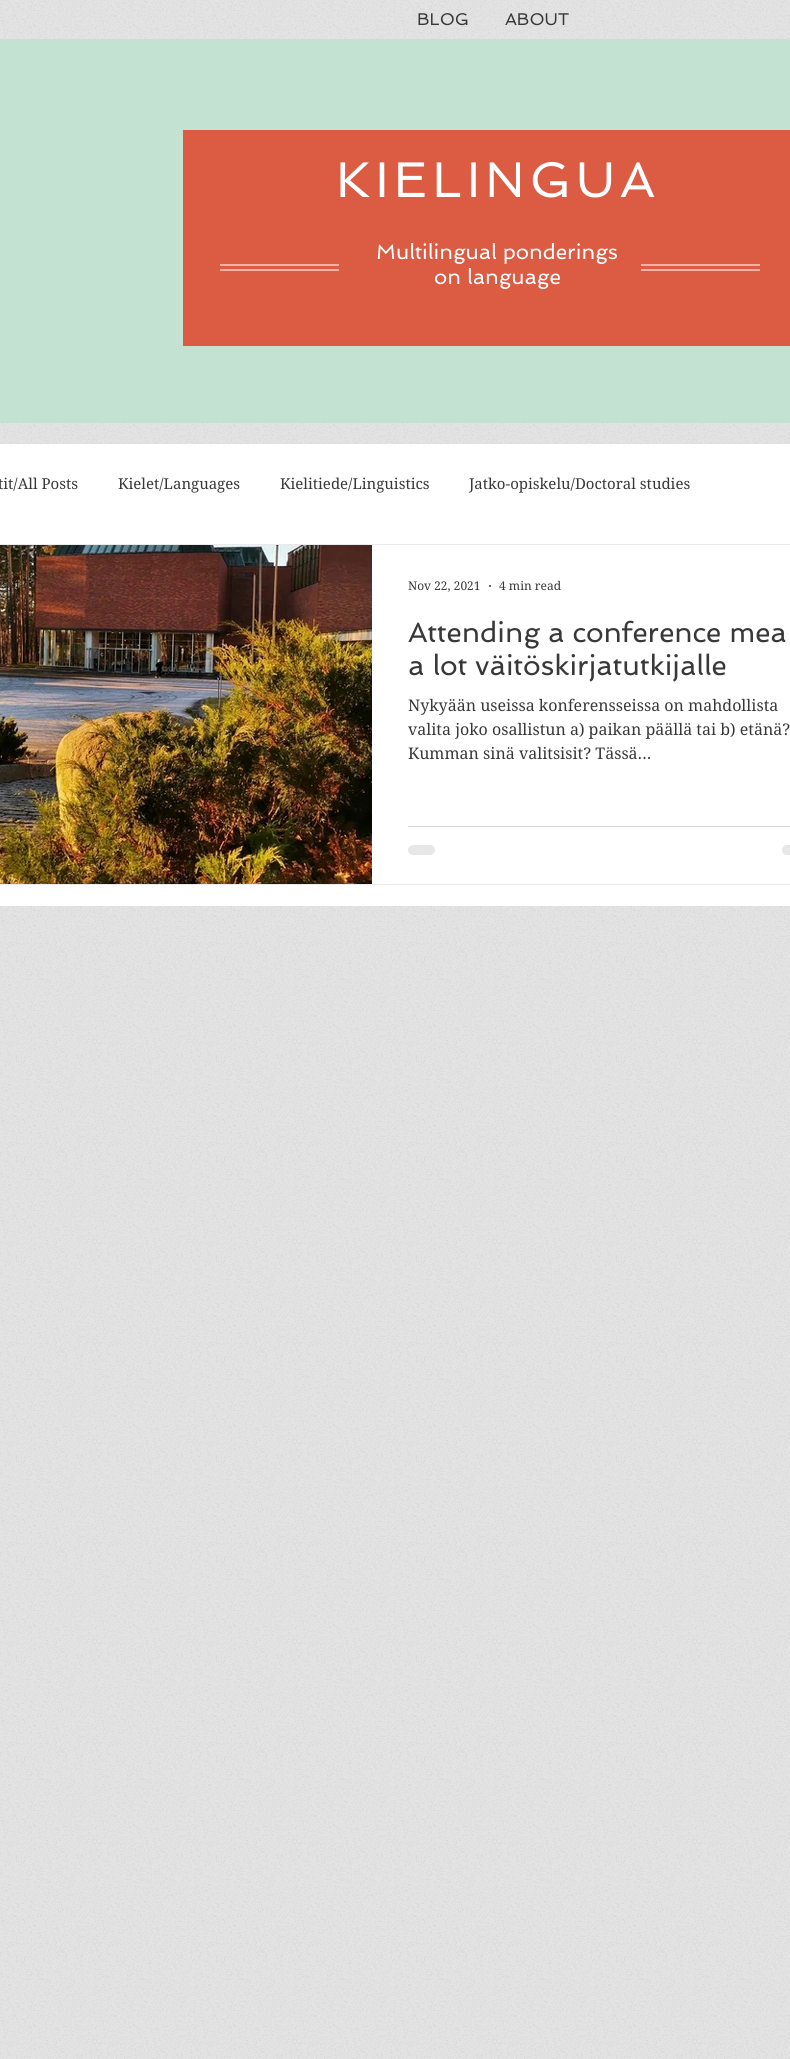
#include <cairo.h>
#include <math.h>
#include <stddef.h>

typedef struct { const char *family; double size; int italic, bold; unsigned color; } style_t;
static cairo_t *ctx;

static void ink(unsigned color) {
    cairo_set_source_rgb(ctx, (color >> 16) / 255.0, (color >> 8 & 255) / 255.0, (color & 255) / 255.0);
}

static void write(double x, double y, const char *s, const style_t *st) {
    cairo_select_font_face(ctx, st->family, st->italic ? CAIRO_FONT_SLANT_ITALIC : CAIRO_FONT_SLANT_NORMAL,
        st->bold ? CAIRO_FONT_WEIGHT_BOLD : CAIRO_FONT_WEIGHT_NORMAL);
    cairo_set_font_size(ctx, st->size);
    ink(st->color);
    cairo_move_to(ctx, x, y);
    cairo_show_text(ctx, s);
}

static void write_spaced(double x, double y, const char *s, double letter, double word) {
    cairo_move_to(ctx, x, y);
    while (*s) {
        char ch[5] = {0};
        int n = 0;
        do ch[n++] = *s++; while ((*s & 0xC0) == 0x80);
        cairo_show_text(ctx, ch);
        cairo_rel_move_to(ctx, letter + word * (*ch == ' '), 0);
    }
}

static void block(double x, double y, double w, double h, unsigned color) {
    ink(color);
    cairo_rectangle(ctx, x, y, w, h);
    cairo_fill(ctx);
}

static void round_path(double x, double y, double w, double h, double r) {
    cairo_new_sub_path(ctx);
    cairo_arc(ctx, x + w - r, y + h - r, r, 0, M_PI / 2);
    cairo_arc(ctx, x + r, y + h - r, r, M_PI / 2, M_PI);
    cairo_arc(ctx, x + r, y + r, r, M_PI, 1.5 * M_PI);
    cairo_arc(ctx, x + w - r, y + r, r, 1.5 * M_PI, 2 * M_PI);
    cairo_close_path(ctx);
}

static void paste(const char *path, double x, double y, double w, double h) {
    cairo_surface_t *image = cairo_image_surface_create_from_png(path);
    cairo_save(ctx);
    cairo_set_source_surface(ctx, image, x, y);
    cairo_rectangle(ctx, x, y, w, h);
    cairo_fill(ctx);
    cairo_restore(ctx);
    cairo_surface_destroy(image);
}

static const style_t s1 = {"Spinnaker", 17, 0, 0, 0x393838};
static const style_t s2 = {"Spinnaker", 21, 0, 0, 0xffffff};
static const style_t s3 = {"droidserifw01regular", 15, 0, 0, 0x393838};
static const style_t s4 = {"droidserifw01regular", 12, 0, 0, 0x393838};
static const style_t s5 = {"Spinnaker", 28, 0, 0, 0x393838};
static const style_t s6 = {"droidserifw01regular", 16, 0, 0, 0x393838};

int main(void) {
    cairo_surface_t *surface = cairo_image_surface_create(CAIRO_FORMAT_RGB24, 790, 2059);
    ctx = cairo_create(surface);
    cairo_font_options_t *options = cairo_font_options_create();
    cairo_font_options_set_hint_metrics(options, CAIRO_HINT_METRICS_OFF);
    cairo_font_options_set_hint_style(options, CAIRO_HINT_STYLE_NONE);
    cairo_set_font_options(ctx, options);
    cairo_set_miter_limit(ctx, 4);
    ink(0xe3e3e3);
    cairo_paint(ctx);
    paste("pic1.png", 0, 0, 790, 2059);
    write(417, 25, "BLOG", &s1);
    write(505, 25, "ABOUT", &s1);
    block(0, 39, 790, 384, 0xc3e2d2);
    block(183, 130, 607, 216, 0xdb5b43);
    cairo_set_font_size(ctx, 50);
    ink(0xffffff);
    write_spaced(336, 197, "KIELINGUA", 5, 0);
    block(220, 264, 119, 2, 0xf4b0a4);
    block(220, 269, 119, 2, 0xf4b0a4);
    write(376, 259, "Multilingual ponderings", &s2);
    write(434, 284, "on language", &s2);
    block(641, 264, 119, 2, 0xf4b0a4);
    block(641, 269, 119, 2, 0xf4b0a4);
    block(0, 444, 790, 462, 0xffffff);
    write(-2, 489, "tit/All Posts", &s3);
    write(118, 489, "Kielet/Languages", &s3);
    write(280, 489, "Kielitiede/Linguistics", &s3);
    write(469, 489, "Jatko-opiskelu/Doctoral studies", &s3);
    cairo_rectangle(ctx, -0.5, 544.5, 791, 340);
    ink(0xeaeaea);
    cairo_set_line_width(ctx, 1);
    cairo_stroke(ctx);
    paste("pic2.png", 0, 545, 372, 339);
    write(408, 590, "Nov 22, 2021", &s4);
    cairo_new_path(ctx);
    cairo_arc(ctx, 490, 586, 1, 0, 2 * M_PI);
    cairo_fill(ctx);
    write(499, 590, "4 min read", &s4);
    write(408, 642, "Attending a conference mea", &s5);
    write(408, 675, "a lot väitöskirjatutkijalle", &s5);
    write(408, 711, "Nykyään useissa konferensseissa on mahdollista", &s6);
    write(408, 735, "valita joko osallistun a) paikan päällä tai b) etänä?", &s6);
    write(408, 759, "Kumman sinä valitsisit? Tässä...", &s6);
    block(408, 826, 382, 1, 0xd7d7d7);
    ink(0xe7e7e7);
    round_path(408, 845, 27, 10, 5);
    cairo_fill(ctx);
    round_path(782, 845, 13, 10, 5);
    cairo_fill(ctx);
    cairo_surface_write_to_png(surface, "screenshot.png");
    cairo_font_options_destroy(options);
    cairo_destroy(ctx);
    cairo_surface_destroy(surface);
    return 0;
}
